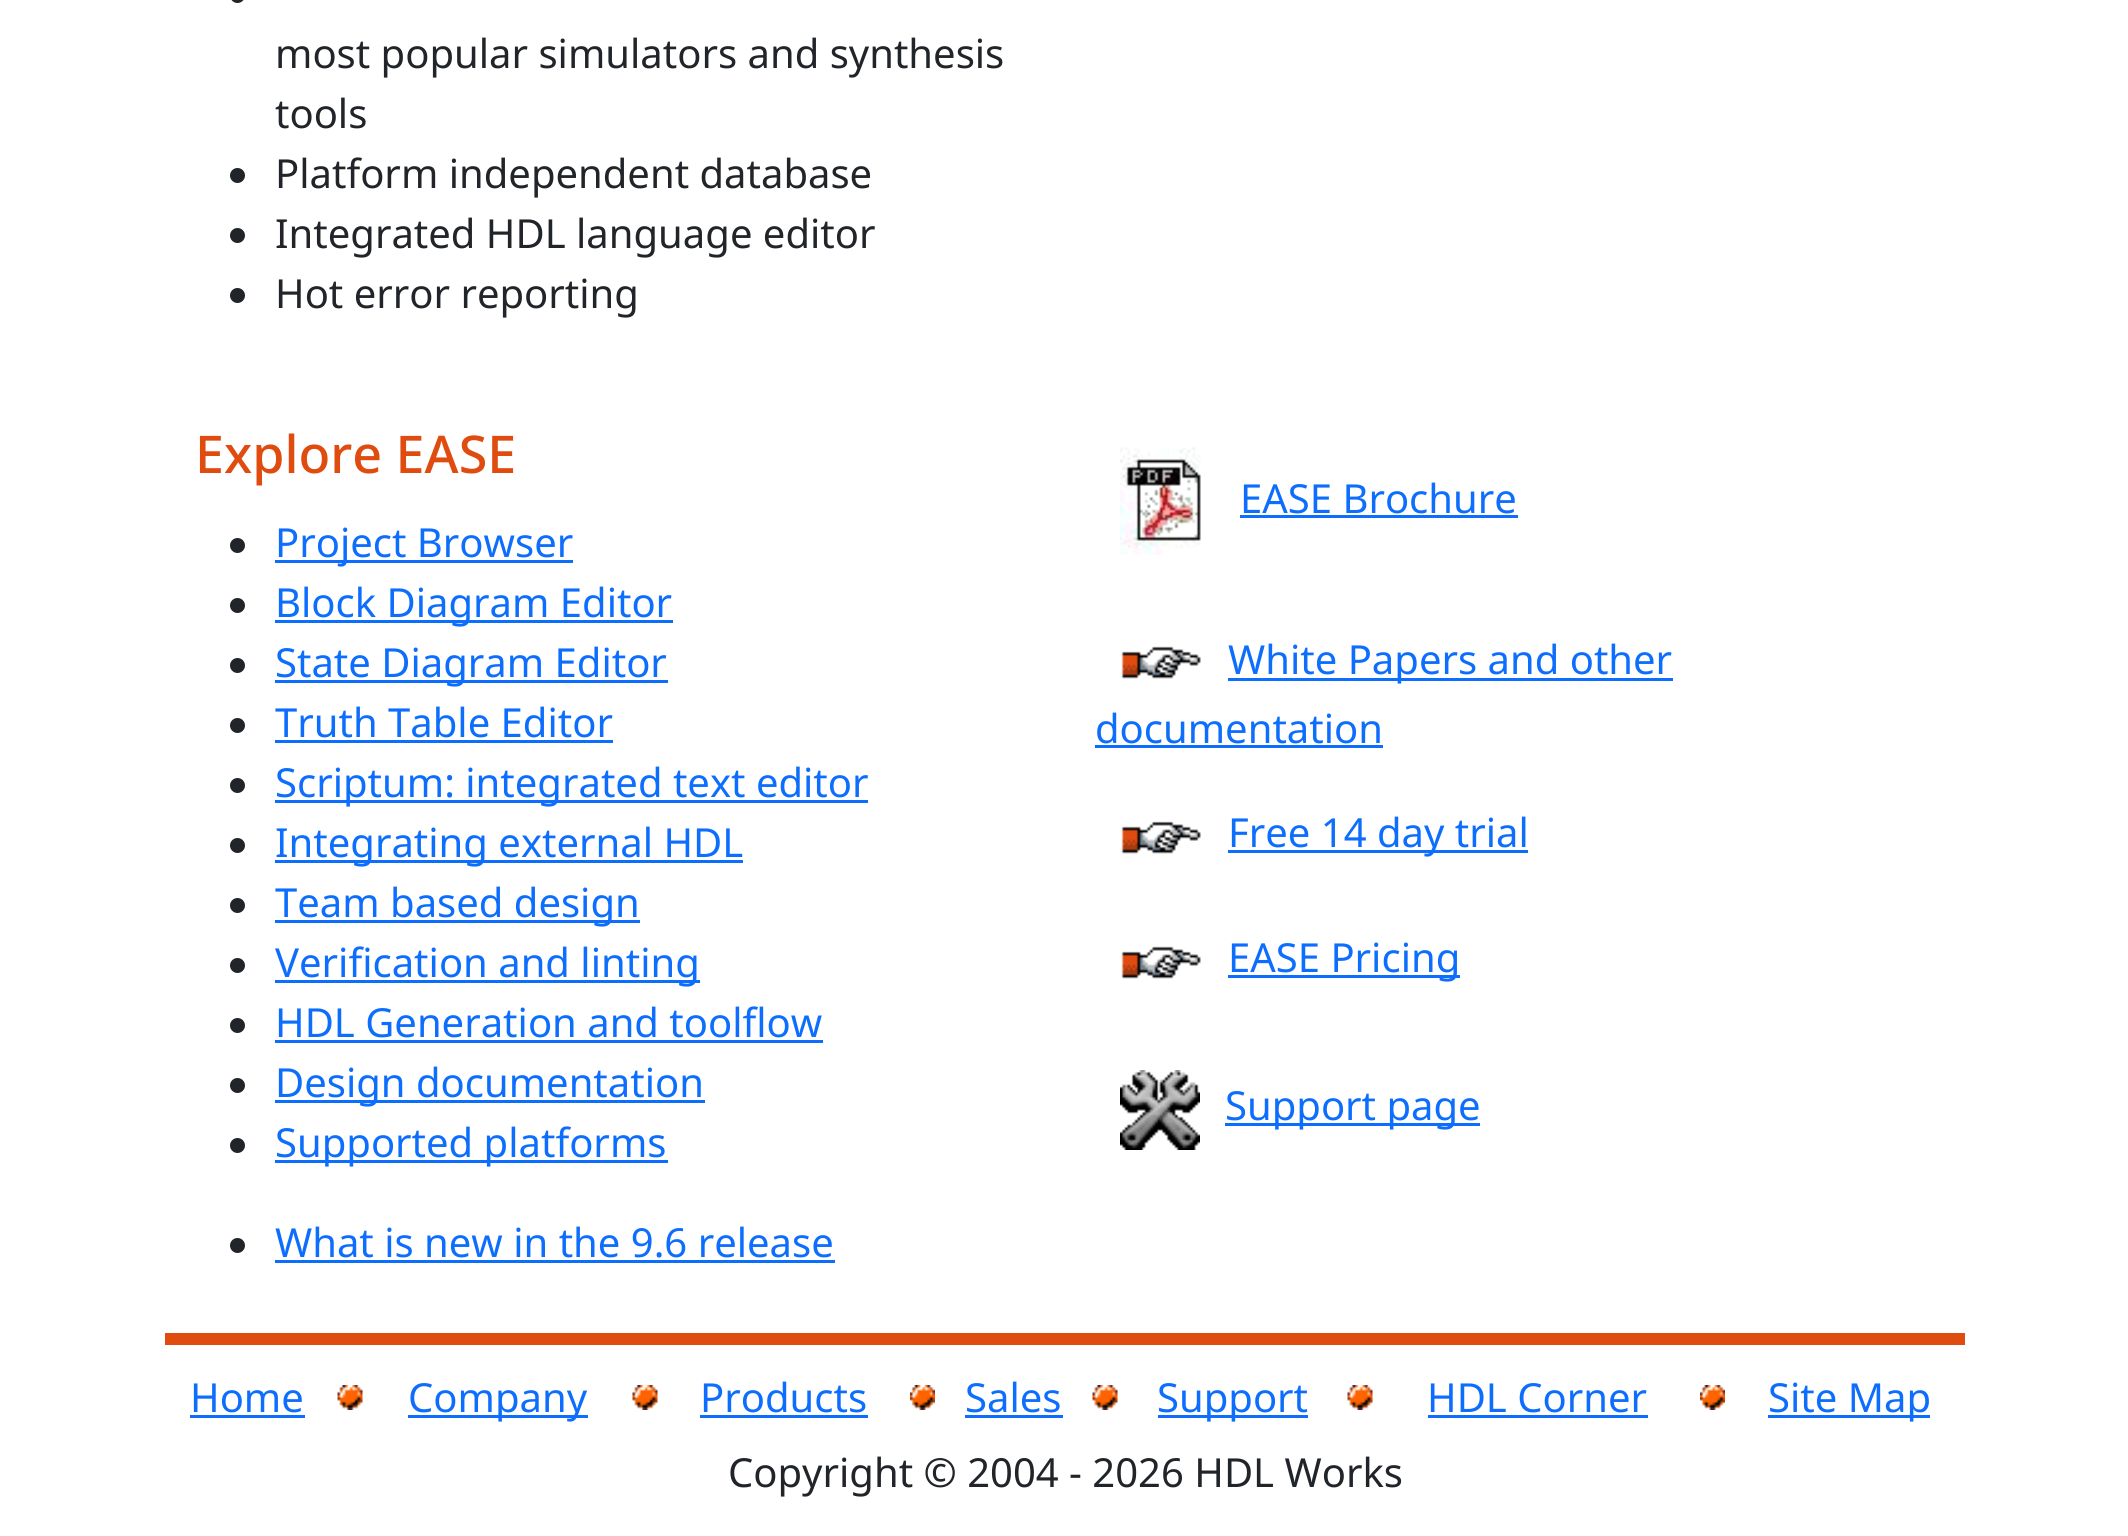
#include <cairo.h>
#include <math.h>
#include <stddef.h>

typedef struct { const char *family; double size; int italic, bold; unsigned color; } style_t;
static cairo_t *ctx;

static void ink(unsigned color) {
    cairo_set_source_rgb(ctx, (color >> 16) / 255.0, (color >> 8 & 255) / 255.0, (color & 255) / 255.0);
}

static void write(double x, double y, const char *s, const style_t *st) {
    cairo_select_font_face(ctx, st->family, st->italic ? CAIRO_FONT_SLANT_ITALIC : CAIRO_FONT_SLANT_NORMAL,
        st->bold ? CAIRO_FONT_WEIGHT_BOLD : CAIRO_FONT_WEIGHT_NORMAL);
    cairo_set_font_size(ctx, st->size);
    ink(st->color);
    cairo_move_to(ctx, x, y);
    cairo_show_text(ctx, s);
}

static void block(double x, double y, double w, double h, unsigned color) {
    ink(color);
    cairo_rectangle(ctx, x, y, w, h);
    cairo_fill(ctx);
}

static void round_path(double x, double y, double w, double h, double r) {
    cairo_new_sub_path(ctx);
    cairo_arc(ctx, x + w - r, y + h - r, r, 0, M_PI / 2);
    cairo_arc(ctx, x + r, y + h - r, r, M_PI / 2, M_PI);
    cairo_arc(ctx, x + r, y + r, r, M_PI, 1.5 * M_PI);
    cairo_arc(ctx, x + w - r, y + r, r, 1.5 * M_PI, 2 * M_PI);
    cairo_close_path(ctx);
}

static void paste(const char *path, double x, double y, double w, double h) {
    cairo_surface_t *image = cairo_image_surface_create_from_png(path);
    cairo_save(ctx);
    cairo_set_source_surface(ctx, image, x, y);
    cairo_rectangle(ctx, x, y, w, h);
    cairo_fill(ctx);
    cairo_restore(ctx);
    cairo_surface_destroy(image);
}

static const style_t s1 = {"Noto Sans", 40, 0, 0, 0x212529};
static const style_t s2 = {"Noto Sans Medium", 52, 0, 0, 0xe04c10};
static const style_t s3 = {"Noto Sans", 40, 0, 0, 0x0d6efd};

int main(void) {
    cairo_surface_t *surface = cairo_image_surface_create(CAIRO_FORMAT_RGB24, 2128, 1536);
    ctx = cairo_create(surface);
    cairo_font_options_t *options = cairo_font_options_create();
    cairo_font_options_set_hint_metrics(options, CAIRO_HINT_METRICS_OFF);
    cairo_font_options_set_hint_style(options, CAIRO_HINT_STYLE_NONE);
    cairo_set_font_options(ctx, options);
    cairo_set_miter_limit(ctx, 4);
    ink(0xffffff);
    cairo_paint(ctx);
    ink(0x212529);
    round_path(230, -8, 15, 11, 7.5);
    cairo_fill(ctx);
    write(275, 68, "most popular simulators and synthesis", &s1);
    write(275, 128, "tools", &s1);
    cairo_new_path(ctx);
    cairo_arc(ctx, 237.5, 175.5, 7.5, 0, 2 * M_PI);
    cairo_fill(ctx);
    write(275, 188, "Platform independent database", &s1);
    cairo_new_path(ctx);
    cairo_arc(ctx, 237.5, 235.5, 7.5, 0, 2 * M_PI);
    cairo_fill(ctx);
    write(275, 248, "Integrated HDL language editor", &s1);
    cairo_new_path(ctx);
    cairo_arc(ctx, 237.5, 295.5, 7.5, 0, 2 * M_PI);
    cairo_fill(ctx);
    write(275, 308, "Hot error reporting", &s1);
    write(195, 473, "Explore EASE", &s2);
    ink(0x212529);
    cairo_new_path(ctx);
    cairo_arc(ctx, 237.5, 545.5, 7.5, 0, 2 * M_PI);
    cairo_fill(ctx);
    block(275, 560, 298, 3, 0x0d6efd);
    write(275, 557, "Project Browser", &s3);
    ink(0x212529);
    cairo_new_path(ctx);
    cairo_arc(ctx, 237.5, 605.5, 7.5, 0, 2 * M_PI);
    cairo_fill(ctx);
    block(275, 620, 398, 3, 0x0d6efd);
    write(275, 617, "Block Diagram Editor", &s3);
    ink(0x212529);
    cairo_new_path(ctx);
    cairo_arc(ctx, 237.5, 665.5, 7.5, 0, 2 * M_PI);
    cairo_fill(ctx);
    block(275, 680, 393, 3, 0x0d6efd);
    write(275, 677, "State Diagram Editor", &s3);
    ink(0x212529);
    cairo_new_path(ctx);
    cairo_arc(ctx, 237.5, 725.5, 7.5, 0, 2 * M_PI);
    cairo_fill(ctx);
    write(275, 737, "Truth Table Editor", &s3);
    block(275, 740, 338, 3, 0x0d6efd);
    ink(0x212529);
    cairo_new_path(ctx);
    cairo_arc(ctx, 237.5, 785.5, 7.5, 0, 2 * M_PI);
    cairo_fill(ctx);
    block(275, 800, 593, 3, 0x0d6efd);
    write(275, 797, "Scriptum: integrated text editor", &s3);
    ink(0x212529);
    cairo_new_path(ctx);
    cairo_arc(ctx, 237.5, 845.5, 7.5, 0, 2 * M_PI);
    cairo_fill(ctx);
    block(275, 860, 468, 3, 0x0d6efd);
    write(275, 857, "Integrating external HDL", &s3);
    ink(0x212529);
    cairo_new_path(ctx);
    cairo_arc(ctx, 237.5, 905.5, 7.5, 0, 2 * M_PI);
    cairo_fill(ctx);
    block(275, 920, 365, 3, 0x0d6efd);
    write(275, 917, "Team based design", &s3);
    ink(0x212529);
    cairo_new_path(ctx);
    cairo_arc(ctx, 237.5, 965.5, 7.5, 0, 2 * M_PI);
    cairo_fill(ctx);
    block(275, 980, 425, 3, 0x0d6efd);
    write(275, 977, "Verification and linting", &s3);
    ink(0x212529);
    cairo_new_path(ctx);
    cairo_arc(ctx, 237.5, 1025.5, 7.5, 0, 2 * M_PI);
    cairo_fill(ctx);
    write(275, 1037, "HDL Generation and toolflow", &s3);
    block(275, 1040, 548, 3, 0x0d6efd);
    ink(0x212529);
    cairo_new_path(ctx);
    cairo_arc(ctx, 237.5, 1085.5, 7.5, 0, 2 * M_PI);
    cairo_fill(ctx);
    block(275, 1100, 430, 3, 0x0d6efd);
    write(275, 1097, "Design documentation", &s3);
    ink(0x212529);
    cairo_new_path(ctx);
    cairo_arc(ctx, 237.5, 1145.5, 7.5, 0, 2 * M_PI);
    cairo_fill(ctx);
    block(275, 1160, 393, 3, 0x0d6efd);
    write(275, 1157, "Supported platforms", &s3);
    ink(0x212529);
    cairo_new_path(ctx);
    cairo_arc(ctx, 237.5, 1245.5, 7.5, 0, 2 * M_PI);
    cairo_fill(ctx);
    write(275, 1257, "What is new in the 9.6 release", &s3);
    block(275, 1260, 560, 3, 0x0d6efd);
    paste("pic1.png", 1120, 447, 83, 108);
    write(1240, 513, "EASE Brochure", &s3);
    block(1240, 515, 278, 3, 0x0d6efd);
    paste("pic2.png", 1121, 646, 80, 33);
    block(1228, 678, 445, 3, 0x0d6efd);
    write(1228, 674, "White Papers and other", &s3);
    write(1095, 743, "documentation", &s3);
    block(1095, 745, 288, 3, 0x0d6efd);
    paste("pic2.png", 1121, 821, 80, 33);
    block(1228, 850, 300, 3, 0x0d6efd);
    write(1228, 847, "Free 14 day trial", &s3);
    paste("pic2.png", 1121, 946, 80, 33);
    block(1228, 975, 232, 3, 0x0d6efd);
    write(1228, 972, "EASE Pricing", &s3);
    paste("pic3.png", 1120, 1070, 80, 80);
    block(1225, 1123, 255, 3, 0x0d6efd);
    write(1225, 1120, "Support page", &s3);
    block(165, 1333, 1800, 12, 0xe04c10);
    write(190, 1412, "Home", &s3);
    block(190, 1415, 115, 3, 0x0d6efd);
    paste("pic4.png", 337, 1385, 26, 25);
    block(408, 1415, 180, 3, 0x0d6efd);
    write(408, 1412, "Company", &s3);
    paste("pic5.png", 632, 1385, 26, 25);
    write(700, 1412, "Products", &s3);
    block(700, 1415, 168, 3, 0x0d6efd);
    paste("pic6.png", 910, 1385, 25, 25);
    write(965, 1412, "Sales", &s3);
    block(965, 1415, 98, 3, 0x0d6efd);
    paste("pic4.png", 1092, 1385, 26, 25);
    block(1158, 1415, 150, 3, 0x0d6efd);
    write(1157, 1412, "Support", &s3);
    paste("pic4.png", 1347, 1385, 26, 25);
    write(1427, 1412, "HDL Corner", &s3);
    block(1428, 1415, 220, 3, 0x0d6efd);
    paste("pic7.png", 1700, 1385, 25, 25);
    block(1768, 1415, 162, 3, 0x0d6efd);
    write(1768, 1412, "Site Map", &s3);
    write(728, 1487, "Copyright © 2004 - 2026 HDL Works", &s1);
    cairo_surface_write_to_png(surface, "screenshot.png");
    cairo_font_options_destroy(options);
    cairo_destroy(ctx);
    cairo_surface_destroy(surface);
    return 0;
}
